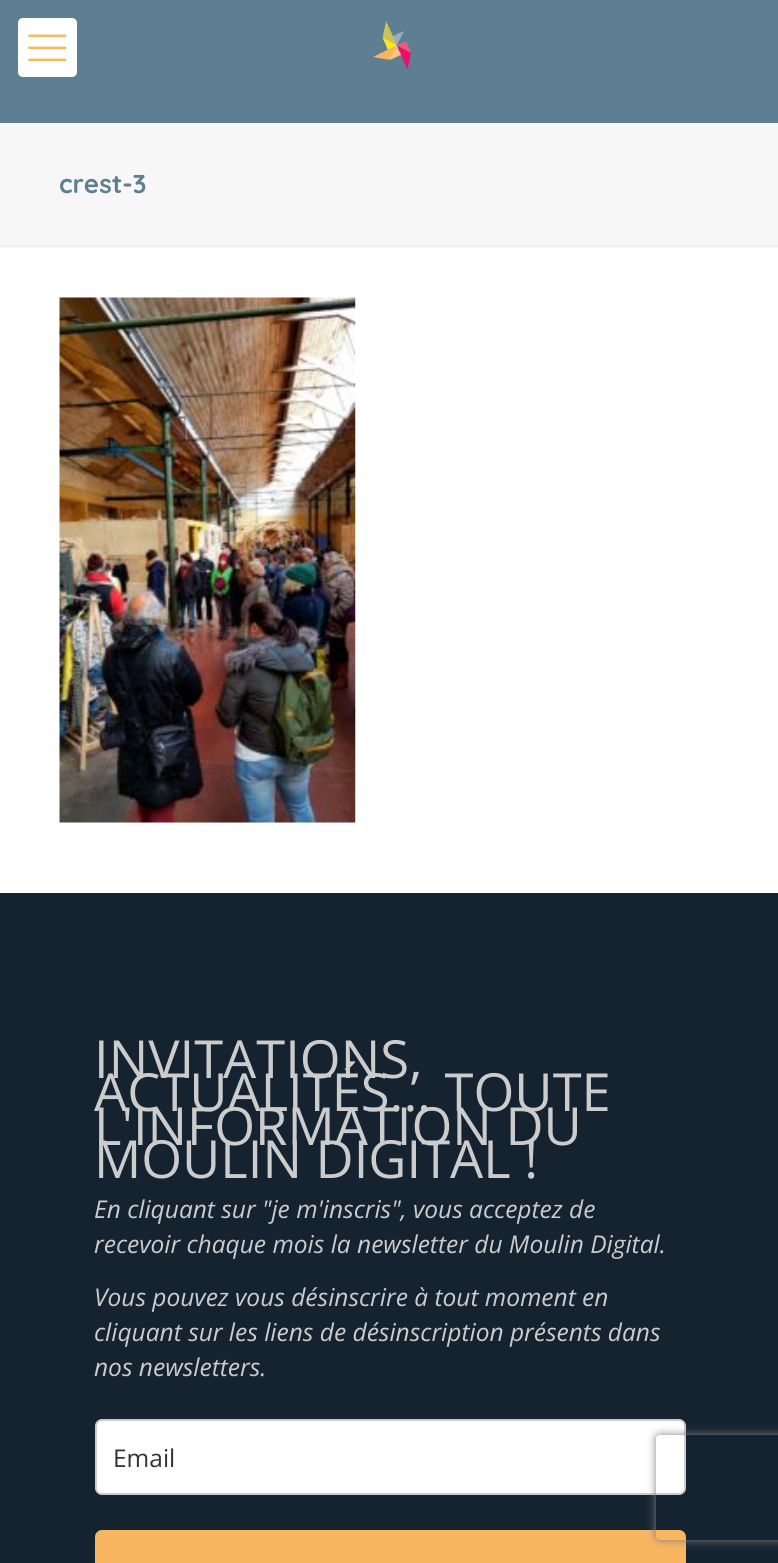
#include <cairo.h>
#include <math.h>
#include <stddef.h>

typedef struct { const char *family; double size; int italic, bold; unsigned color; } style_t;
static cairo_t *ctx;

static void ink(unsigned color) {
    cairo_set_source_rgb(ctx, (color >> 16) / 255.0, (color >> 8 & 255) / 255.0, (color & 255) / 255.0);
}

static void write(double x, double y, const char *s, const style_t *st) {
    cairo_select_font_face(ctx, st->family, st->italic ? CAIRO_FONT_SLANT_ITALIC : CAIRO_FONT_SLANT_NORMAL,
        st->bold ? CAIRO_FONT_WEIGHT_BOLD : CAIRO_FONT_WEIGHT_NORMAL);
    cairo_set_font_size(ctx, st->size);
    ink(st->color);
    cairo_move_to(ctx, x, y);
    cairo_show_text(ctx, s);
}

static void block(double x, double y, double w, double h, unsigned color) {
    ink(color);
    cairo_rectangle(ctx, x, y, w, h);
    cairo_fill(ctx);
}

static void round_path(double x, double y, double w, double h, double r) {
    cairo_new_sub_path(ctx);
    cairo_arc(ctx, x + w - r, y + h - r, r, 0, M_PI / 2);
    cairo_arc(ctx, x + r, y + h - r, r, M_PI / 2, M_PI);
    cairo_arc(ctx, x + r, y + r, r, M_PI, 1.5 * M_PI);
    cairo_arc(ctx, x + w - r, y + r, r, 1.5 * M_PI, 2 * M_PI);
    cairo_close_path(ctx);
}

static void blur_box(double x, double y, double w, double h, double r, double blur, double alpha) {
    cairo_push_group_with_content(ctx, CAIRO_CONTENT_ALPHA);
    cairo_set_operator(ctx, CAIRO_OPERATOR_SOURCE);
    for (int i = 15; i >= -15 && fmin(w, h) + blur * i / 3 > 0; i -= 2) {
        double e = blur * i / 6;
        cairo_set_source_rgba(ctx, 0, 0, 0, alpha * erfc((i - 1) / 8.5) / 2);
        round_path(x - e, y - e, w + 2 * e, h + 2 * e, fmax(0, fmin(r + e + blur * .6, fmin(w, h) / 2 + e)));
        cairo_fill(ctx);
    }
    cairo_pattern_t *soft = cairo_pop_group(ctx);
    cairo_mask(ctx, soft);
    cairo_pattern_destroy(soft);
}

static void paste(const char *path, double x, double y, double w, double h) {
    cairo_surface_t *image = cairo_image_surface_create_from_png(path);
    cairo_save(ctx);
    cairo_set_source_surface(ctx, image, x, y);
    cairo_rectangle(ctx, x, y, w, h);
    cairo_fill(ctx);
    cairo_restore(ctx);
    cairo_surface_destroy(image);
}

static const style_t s1 = {"Quicksand", 26, 0, 1, 0x5e7f92};
static const style_t s2 = {"Open Sans", 52.5, 0, 0, 0xcccccc};
static const style_t s3 = {"Open Sans", 24.5, 1, 0, 0xcccccc};
static const style_t s4 = {"Open Sans", 24.5, 0, 0, 0x333333};

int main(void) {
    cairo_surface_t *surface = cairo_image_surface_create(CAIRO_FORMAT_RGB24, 778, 1563);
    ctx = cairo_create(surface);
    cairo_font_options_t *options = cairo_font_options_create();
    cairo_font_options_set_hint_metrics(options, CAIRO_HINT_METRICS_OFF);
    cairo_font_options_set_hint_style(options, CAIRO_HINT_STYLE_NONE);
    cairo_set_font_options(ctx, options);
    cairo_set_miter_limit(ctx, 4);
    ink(0xffffff);
    cairo_paint(ctx);
    block(0, 0, 778, 123, 0x5e7f92);
    ink(0xffffff);
    round_path(18, 18, 59, 59, 5);
    cairo_fill(ctx);
    paste("pic1.png", 28, 34, 39, 27);
    paste("pic2.png", 373, 21, 39, 49);
    block(0, 123, 778, 122, 0xf7f7f7);
    write(59, 193, "crest-3", &s1);
    paste("pic3.png", 0, 245, 778, 3);
    paste("pic4.png", 59, 297, 297, 526);
    block(0, 893, 778, 670, 0x152331);
    write(94, 1078, "INVITATIONS,", &s2);
    write(94, 1111, "ACTUALITÉS... TOUTE", &s2);
    write(94, 1145, "L'INFORMATION DU", &s2);
    write(94, 1178, "MOULIN DIGITAL !", &s2);
    write(94, 1218, "En cliquant sur \"je m'inscris\", vous acceptez de", &s3);
    write(94, 1253, "recevoir chaque mois la newsletter du Moulin Digital.", &s3);
    write(94, 1306, "Vous pouvez vous désinscrire à tout moment en", &s3);
    write(94, 1341, "cliquant sur les liens de désinscription présents dans", &s3);
    write(94, 1376, "nos newsletters.", &s3);
    ink(0xffffff);
    round_path(96, 1420, 589, 74, 6);
    cairo_fill_preserve(ctx);
    ink(0xcccccc);
    cairo_stroke(ctx);
    write(113, 1467, "Email", &s4);
    ink(0xf9b661);
    round_path(95, 1530, 591, 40, 7);
    cairo_fill(ctx);
    cairo_save(ctx);
    cairo_set_fill_rule(ctx, CAIRO_FILL_RULE_EVEN_ODD);
    cairo_new_path(ctx);
    cairo_move_to(ctx, 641, 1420);
    cairo_line_to(ctx, 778, 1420);
    cairo_line_to(ctx, 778, 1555);
    cairo_line_to(ctx, 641, 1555);
    cairo_close_path(ctx);
    cairo_move_to(ctx, 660, 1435);
    cairo_line_to(ctx, 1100, 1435);
    cairo_curve_to(ctx, 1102, 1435, 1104, 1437, 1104, 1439);
    cairo_line_to(ctx, 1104, 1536);
    cairo_curve_to(ctx, 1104, 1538, 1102, 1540, 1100, 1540);
    cairo_line_to(ctx, 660, 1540);
    cairo_curve_to(ctx, 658, 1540, 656, 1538, 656, 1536);
    cairo_line_to(ctx, 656, 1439);
    cairo_curve_to(ctx, 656, 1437, 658, 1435, 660, 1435);
    cairo_close_path(ctx);
    cairo_clip(ctx);
    ink(0x808080);
    blur_box(656, 1435, 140, 105, 4, 4.5, 1);
    cairo_restore(ctx);
    cairo_surface_write_to_png(surface, "screenshot.png");
    cairo_font_options_destroy(options);
    cairo_destroy(ctx);
    cairo_surface_destroy(surface);
    return 0;
}
